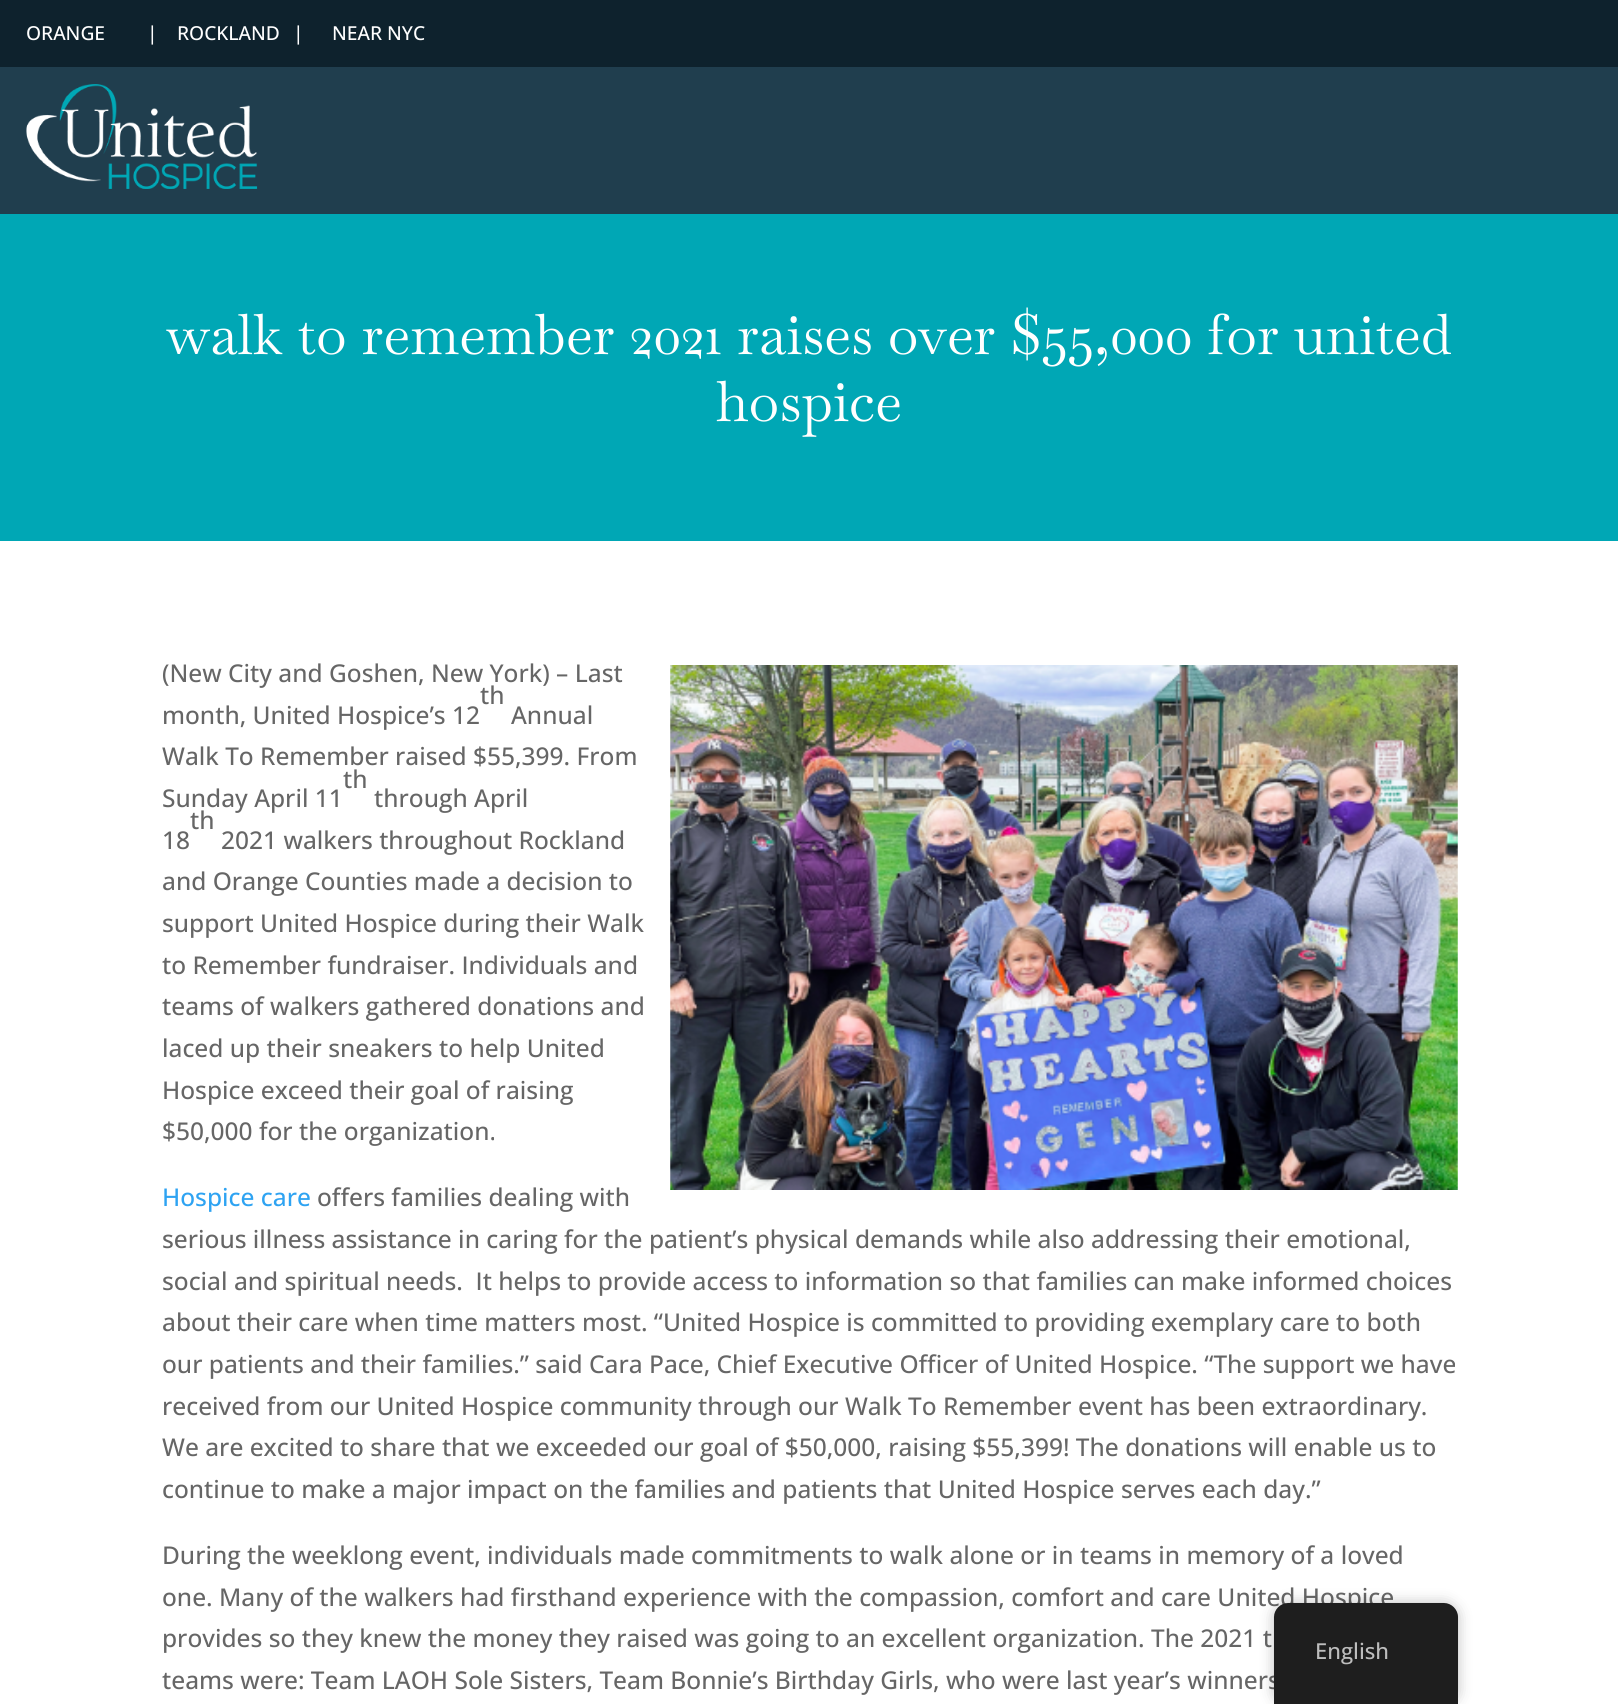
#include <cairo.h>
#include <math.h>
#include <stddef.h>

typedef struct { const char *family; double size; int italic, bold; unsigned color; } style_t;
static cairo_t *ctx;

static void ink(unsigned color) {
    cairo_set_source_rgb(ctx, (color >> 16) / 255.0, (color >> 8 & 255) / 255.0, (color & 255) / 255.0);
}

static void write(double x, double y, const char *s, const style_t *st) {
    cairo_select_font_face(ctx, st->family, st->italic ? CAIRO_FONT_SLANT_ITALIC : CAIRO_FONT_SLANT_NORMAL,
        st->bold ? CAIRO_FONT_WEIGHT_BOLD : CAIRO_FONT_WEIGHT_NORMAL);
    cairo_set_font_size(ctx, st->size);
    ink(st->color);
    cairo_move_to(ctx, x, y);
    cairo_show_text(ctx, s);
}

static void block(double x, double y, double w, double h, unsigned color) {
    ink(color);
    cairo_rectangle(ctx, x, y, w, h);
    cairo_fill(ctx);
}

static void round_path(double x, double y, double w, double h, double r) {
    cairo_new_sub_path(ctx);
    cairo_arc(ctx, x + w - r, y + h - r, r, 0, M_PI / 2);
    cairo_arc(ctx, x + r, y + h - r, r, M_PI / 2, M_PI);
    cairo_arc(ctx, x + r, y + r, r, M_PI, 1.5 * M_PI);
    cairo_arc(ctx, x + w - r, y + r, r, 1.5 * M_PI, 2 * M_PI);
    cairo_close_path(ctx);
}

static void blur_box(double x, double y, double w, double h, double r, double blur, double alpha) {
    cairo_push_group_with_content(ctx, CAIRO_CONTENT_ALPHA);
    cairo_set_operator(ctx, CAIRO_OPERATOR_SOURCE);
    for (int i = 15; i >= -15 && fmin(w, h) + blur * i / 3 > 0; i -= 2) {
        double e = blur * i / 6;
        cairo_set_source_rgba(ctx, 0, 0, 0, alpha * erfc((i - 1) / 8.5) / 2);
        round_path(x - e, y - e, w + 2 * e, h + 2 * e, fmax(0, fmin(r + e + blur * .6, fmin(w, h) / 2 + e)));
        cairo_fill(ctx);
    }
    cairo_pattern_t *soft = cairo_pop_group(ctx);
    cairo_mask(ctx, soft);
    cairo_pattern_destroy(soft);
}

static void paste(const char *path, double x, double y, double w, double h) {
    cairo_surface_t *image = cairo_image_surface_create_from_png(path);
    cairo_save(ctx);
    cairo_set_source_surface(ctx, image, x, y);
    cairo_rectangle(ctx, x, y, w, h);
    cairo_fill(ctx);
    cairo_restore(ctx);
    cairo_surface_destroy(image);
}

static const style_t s1 = {"Open Sans Medium", 19.25, 0, 0, 0xffffff};
static const style_t s2 = {"Baskervville", 56, 0, 0, 0xffffff};
static const style_t s3 = {"Open Sans Medium", 24.5, 0, 0, 0x666666};
static const style_t s4 = {"Open Sans Medium", 24.5, 0, 0, 0x2ea3f2};
static const style_t s5 = {"Open Sans Medium", 22, 0, 0, 0xbdbdbd};

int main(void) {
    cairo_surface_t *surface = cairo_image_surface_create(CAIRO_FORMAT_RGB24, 1618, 1704);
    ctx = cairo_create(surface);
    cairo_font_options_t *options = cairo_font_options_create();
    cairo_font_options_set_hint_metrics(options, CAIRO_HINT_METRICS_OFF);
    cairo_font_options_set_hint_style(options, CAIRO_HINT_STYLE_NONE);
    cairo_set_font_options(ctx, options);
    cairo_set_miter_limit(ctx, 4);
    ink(0x00a7b5);
    cairo_paint(ctx);
    block(0, 0, 1618, 67, 0x0e222d);
    write(26, 40, "ORANGE", &s1);
    write(147, 40, "|", &s1);
    write(177, 40, "ROCKLAND", &s1);
    write(293, 40, "|", &s1);
    write(332, 40, "NEAR NYC", &s1);
    block(0, 67, 1618, 147, 0x203e4e);
    paste("pic1.png", 26, 84, 232, 105);
    write(167, 354, "walk to remember 2021 raises over $55,000 for united", &s2);
    write(716, 421, "hospice", &s2);
    block(0, 541, 1618, 1163, 0xffffff);
    write(162, 682, "(New City and Goshen, New York) – Last", &s3);
    write(480, 704, "th", &s3);
    write(162, 724, "month, United Hospice’s 12", &s3);
    write(511, 724, "Annual", &s3);
    write(162, 765, "Walk To Remember raised $55,399. From", &s3);
    write(343, 788, "th", &s3);
    write(162, 807, "Sunday April 11", &s3);
    write(374, 807, "through April", &s3);
    write(190, 829, "th", &s3);
    write(162, 849, "18", &s3);
    write(221, 849, "2021 walkers throughout Rockland", &s3);
    write(162, 890, "and Orange Counties made a decision to", &s3);
    write(162, 932, "support United Hospice during their Walk", &s3);
    write(162, 974, "to Remember fundraiser. Individuals and", &s3);
    write(162, 1015, "teams of walkers gathered donations and", &s3);
    write(162, 1057, "laced up their sneakers to help United", &s3);
    write(162, 1099, "Hospice exceed their goal of raising", &s3);
    write(162, 1140, "$50,000 for the organization.", &s3);
    paste("pic2.png", 670, 665, 788, 525);
    write(162, 1206, "Hospice care", &s4);
    write(317, 1206, "offers families dealing with", &s3);
    write(162, 1248, "serious illness assistance in caring for the patient’s physical demands while also addressing their emotional,", &s3);
    write(162, 1290, "social and spiritual needs.  It helps to provide access to information so that families can make informed choices", &s3);
    write(162, 1331, "about their care when time matters most. “United Hospice is committed to providing exemplary care to both", &s3);
    write(162, 1373, "our patients and their families.” said Cara Pace, Chief Executive Officer of United Hospice. “The support we have", &s3);
    write(162, 1415, "received from our United Hospice community through our Walk To Remember event has been extraordinary.", &s3);
    write(162, 1456, "We are excited to share that we exceeded our goal of $50,000, raising $55,399! The donations will enable us to", &s3);
    write(162, 1498, "continue to make a major impact on the families and patients that United Hospice serves each day.”", &s3);
    write(162, 1564, "During the weeklong event, individuals made commitments to walk alone or in teams in memory of a loved", &s3);
    write(162, 1606, "one. Many of the walkers had firsthand experience with the compassion, comfort and care United Hospice", &s3);
    write(162, 1647, "provides so they knew the money they raised was going to an excellent organization. The 2021 t", &s3);
    write(162, 1689, "teams were: Team LAOH Sole Sisters, Team Bonnie’s Birthday Girls, who were last year’s winners", &s3);
    ink(0x000000);
    blur_box(1274, 1603, 184, 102, 14, 7, 0.25);
    ink(0x1e1e1e);
    cairo_new_path(ctx);
    cairo_move_to(ctx, 1288, 1603);
    cairo_line_to(ctx, 1444, 1603);
    cairo_curve_to(ctx, 1451.5, 1603, 1458, 1609.5, 1458, 1617);
    cairo_line_to(ctx, 1458, 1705);
    cairo_line_to(ctx, 1274, 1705);
    cairo_line_to(ctx, 1274, 1617);
    cairo_curve_to(ctx, 1274, 1609.5, 1280.5, 1603, 1288, 1603);
    cairo_close_path(ctx);
    cairo_fill(ctx);
    write(1315, 1659, "English", &s5);
    cairo_surface_write_to_png(surface, "screenshot.png");
    cairo_font_options_destroy(options);
    cairo_destroy(ctx);
    cairo_surface_destroy(surface);
    return 0;
}
